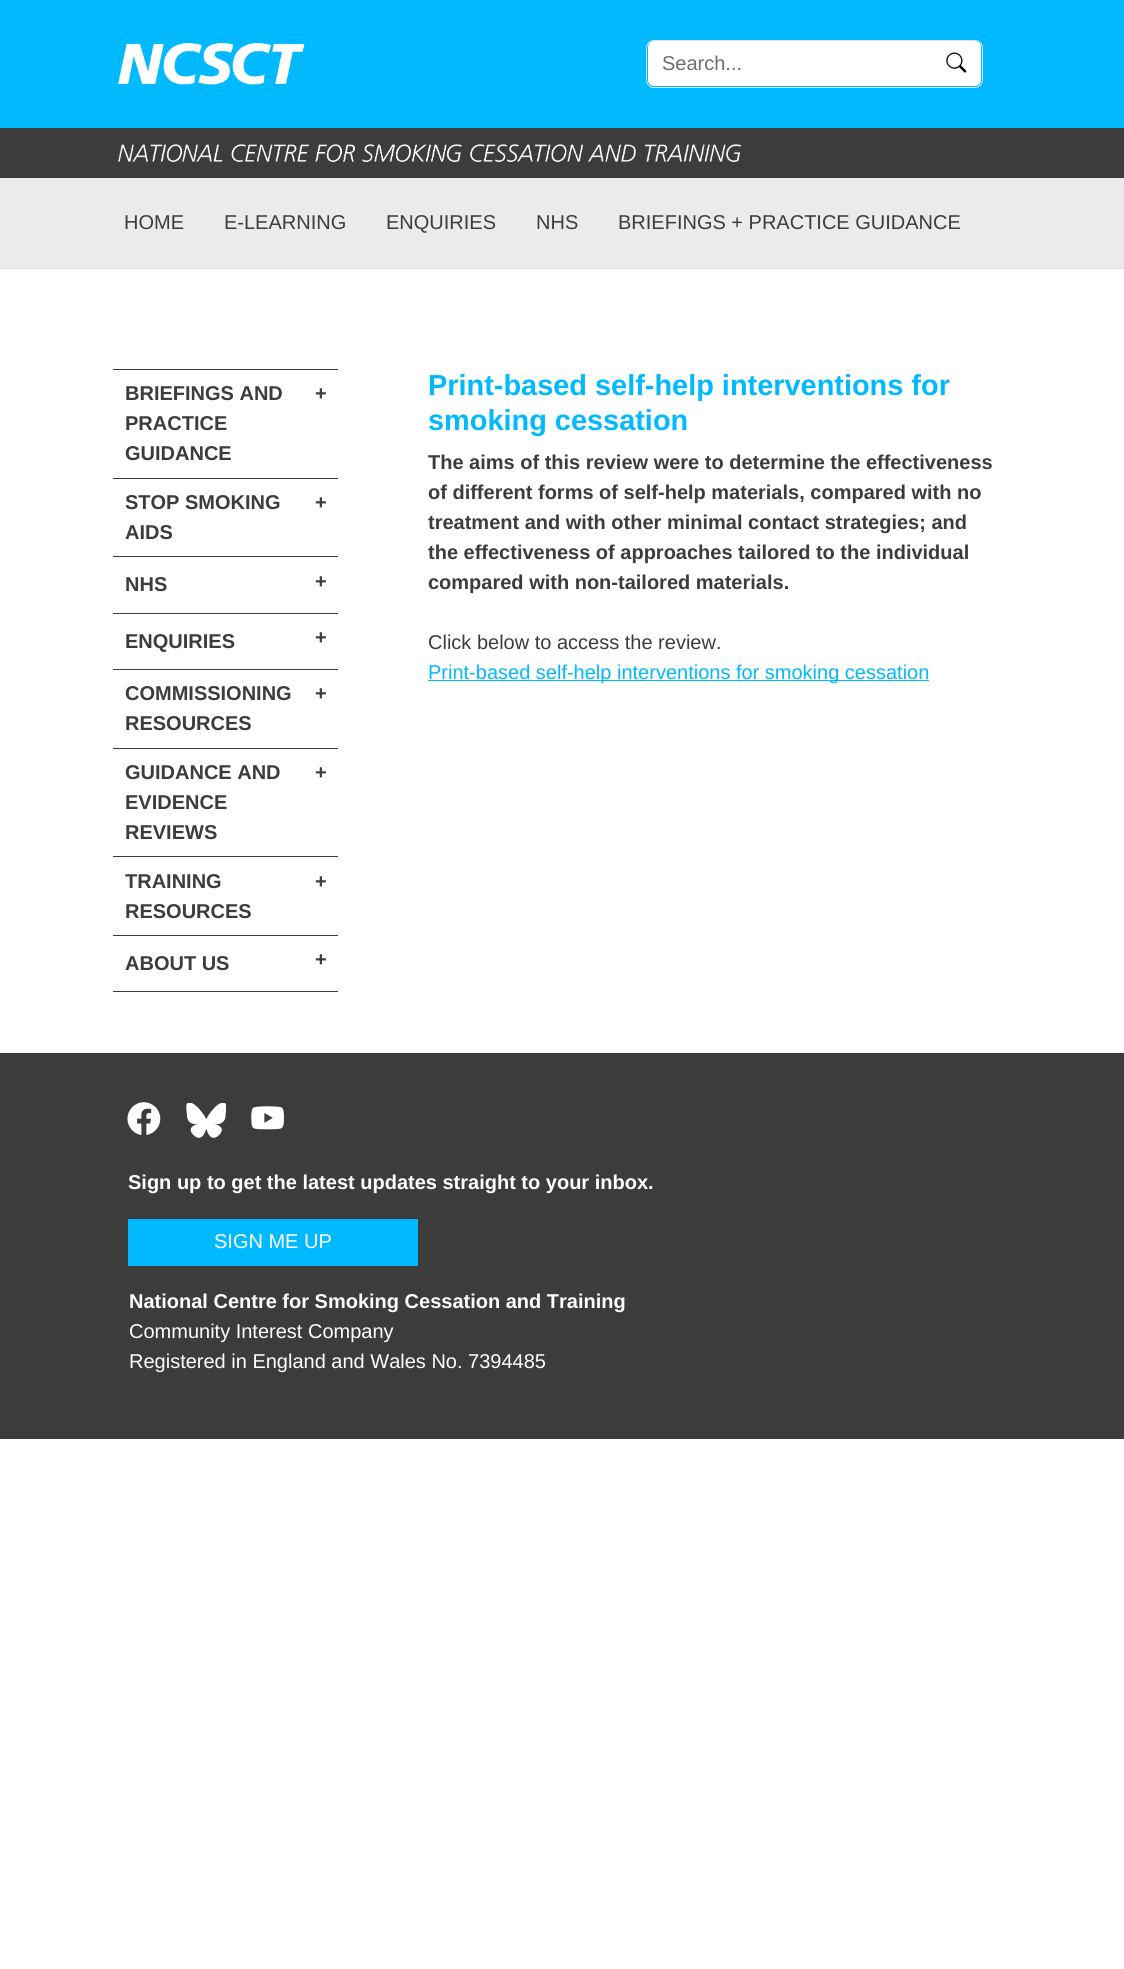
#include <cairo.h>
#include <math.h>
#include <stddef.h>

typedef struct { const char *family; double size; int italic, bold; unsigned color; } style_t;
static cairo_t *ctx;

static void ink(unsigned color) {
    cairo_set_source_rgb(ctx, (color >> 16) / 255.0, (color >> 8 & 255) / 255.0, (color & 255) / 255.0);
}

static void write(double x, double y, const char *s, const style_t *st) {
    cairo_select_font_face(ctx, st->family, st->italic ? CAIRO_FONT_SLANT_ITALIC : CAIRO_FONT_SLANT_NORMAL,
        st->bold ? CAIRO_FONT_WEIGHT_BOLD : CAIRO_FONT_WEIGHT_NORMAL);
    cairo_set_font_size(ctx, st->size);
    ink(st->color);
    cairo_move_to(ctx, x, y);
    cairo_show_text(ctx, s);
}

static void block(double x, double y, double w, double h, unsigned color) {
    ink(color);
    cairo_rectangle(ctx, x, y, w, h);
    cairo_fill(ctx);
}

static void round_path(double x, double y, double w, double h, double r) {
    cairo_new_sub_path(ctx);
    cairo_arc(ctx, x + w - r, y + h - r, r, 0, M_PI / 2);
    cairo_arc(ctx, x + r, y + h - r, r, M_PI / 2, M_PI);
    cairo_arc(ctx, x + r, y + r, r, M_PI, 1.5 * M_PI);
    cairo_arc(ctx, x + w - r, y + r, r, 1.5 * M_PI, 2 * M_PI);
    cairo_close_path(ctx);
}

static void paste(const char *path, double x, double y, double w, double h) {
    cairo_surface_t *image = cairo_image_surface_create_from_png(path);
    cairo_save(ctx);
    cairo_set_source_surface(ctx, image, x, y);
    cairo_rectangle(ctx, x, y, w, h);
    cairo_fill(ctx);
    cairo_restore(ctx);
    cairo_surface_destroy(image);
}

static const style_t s1 = {"Liberation Sans", 20, 0, 0, 0x6d6d6d};
static const style_t s2 = {"Liberation Sans", 20, 0, 0, 0x3c3c3c};
static const style_t s3 = {"Liberation Sans", 20, 0, 1, 0x3c3c3c};
static const style_t s4 = {"Liberation Sans", 28.9, 0, 1, 0x00b9ff};
static const style_t s5 = {"Liberation Sans", 20, 0, 0, 0x00b9ff};
static const style_t s6 = {"Liberation Sans", 20, 0, 1, 0xffffff};
static const style_t s7 = {"Liberation Sans", 20, 0, 0, 0xffffff};

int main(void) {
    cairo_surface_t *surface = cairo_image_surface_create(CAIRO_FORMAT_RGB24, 1124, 1969);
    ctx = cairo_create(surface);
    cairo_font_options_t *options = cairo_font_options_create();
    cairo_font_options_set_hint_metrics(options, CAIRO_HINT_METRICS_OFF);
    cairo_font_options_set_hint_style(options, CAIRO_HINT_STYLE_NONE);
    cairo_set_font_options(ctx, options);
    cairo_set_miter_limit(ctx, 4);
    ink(0xffffff);
    cairo_paint(ctx);
    block(0, 0, 1124, 128, 0x00b9ff);
    paste("pic1.png", 118, 43, 187, 42);
    ink(0xffffff);
    round_path(648, 41, 333, 45, 6);
    cairo_fill(ctx);
    round_path(646.5, 40.5, 336, 47, 7.5);
    ink(0xdee2e6);
    cairo_set_line_width(ctx, 1);
    cairo_stroke(ctx);
    write(662, 70, "Search...", &s1);
    paste("pic2.png", 946, 52, 21, 21);
    block(0, 128, 1124, 50, 0x3c3c3c);
    paste("pic3.png", 118, 144, 624, 18);
    block(0, 178, 1124, 90, 0xebebeb);
    block(0, 268, 1124, 1, 0xdee2e6);
    write(124, 229, "HOME", &s2);
    write(224, 229, "E-LEARNING", &s2);
    write(386, 229, "ENQUIRIES", &s2);
    write(536, 229, "NHS", &s2);
    write(618, 229, "BRIEFINGS + PRACTICE GUIDANCE", &s2);
    block(113, 369, 225, 1, 0x3c3c3c);
    block(113, 478, 225, 1, 0x3c3c3c);
    write(125, 400, "BRIEFINGS AND", &s3);
    write(125, 430, "PRACTICE", &s3);
    write(125, 460, "GUIDANCE", &s3);
    write(315, 400, "+", &s3);
    block(113, 556, 225, 1, 0x3c3c3c);
    write(125, 509, "STOP SMOKING", &s3);
    write(125, 539, "AIDS", &s3);
    write(315, 509, "+", &s3);
    block(113, 613, 225, 1, 0x3c3c3c);
    write(125, 591, "NHS", &s3);
    write(315, 588, "+", &s3);
    block(113, 669, 225, 1, 0x3c3c3c);
    write(125, 648, "ENQUIRIES", &s3);
    write(315, 644, "+", &s3);
    block(113, 748, 225, 1, 0x3c3c3c);
    write(125, 700, "COMMISSIONING", &s3);
    write(125, 730, "RESOURCES", &s3);
    write(315, 700, "+", &s3);
    block(113, 856, 225, 1, 0x3c3c3c);
    write(125, 779, "GUIDANCE AND", &s3);
    write(125, 809, "EVIDENCE", &s3);
    write(125, 839, "REVIEWS", &s3);
    write(315, 779, "+", &s3);
    block(113, 935, 225, 1, 0x3c3c3c);
    write(125, 888, "TRAINING", &s3);
    write(125, 918, "RESOURCES", &s3);
    write(315, 888, "+", &s3);
    block(113, 991, 225, 1, 0x3c3c3c);
    write(125, 970, "ABOUT US", &s3);
    write(315, 966, "+", &s3);
    write(428, 395, "Print-based self-help interventions for", &s4);
    write(428, 430, "smoking cessation", &s4);
    write(428, 469, "The aims of this review were to determine the effectiveness", &s3);
    write(428, 499, "of different forms of self-help materials, compared with no", &s3);
    write(428, 529, "treatment and with other minimal contact strategies; and", &s3);
    write(428, 559, "the effectiveness of approaches tailored to the individual", &s3);
    write(428, 589, "compared with non-tailored materials.", &s3);
    write(428, 649, "Click below to access the review.", &s2);
    block(428, 680, 501, 1, 0x00b9ff);
    write(428, 679, "Print-based self-help interventions for smoking cessation", &s5);
    block(0, 1053, 1124, 386, 0x3c3c3c);
    paste("pic4.png", 127, 1102, 34, 33);
    paste("pic5.png", 186, 1103, 40, 35);
    paste("pic6.png", 251, 1106, 33, 24);
    write(128, 1189, "Sign up to get the latest updates straight to your inbox.", &s6);
    block(128, 1219, 290, 47, 0x00b9ff);
    write(214, 1248, "SIGN ME UP", &s7);
    write(129, 1308, "National Centre for Smoking Cessation and Training", &s6);
    write(129, 1338, "Community Interest Company", &s7);
    write(129, 1368, "Registered in England and Wales No. 7394485", &s7);
    cairo_surface_write_to_png(surface, "screenshot.png");
    cairo_font_options_destroy(options);
    cairo_destroy(ctx);
    cairo_surface_destroy(surface);
    return 0;
}
